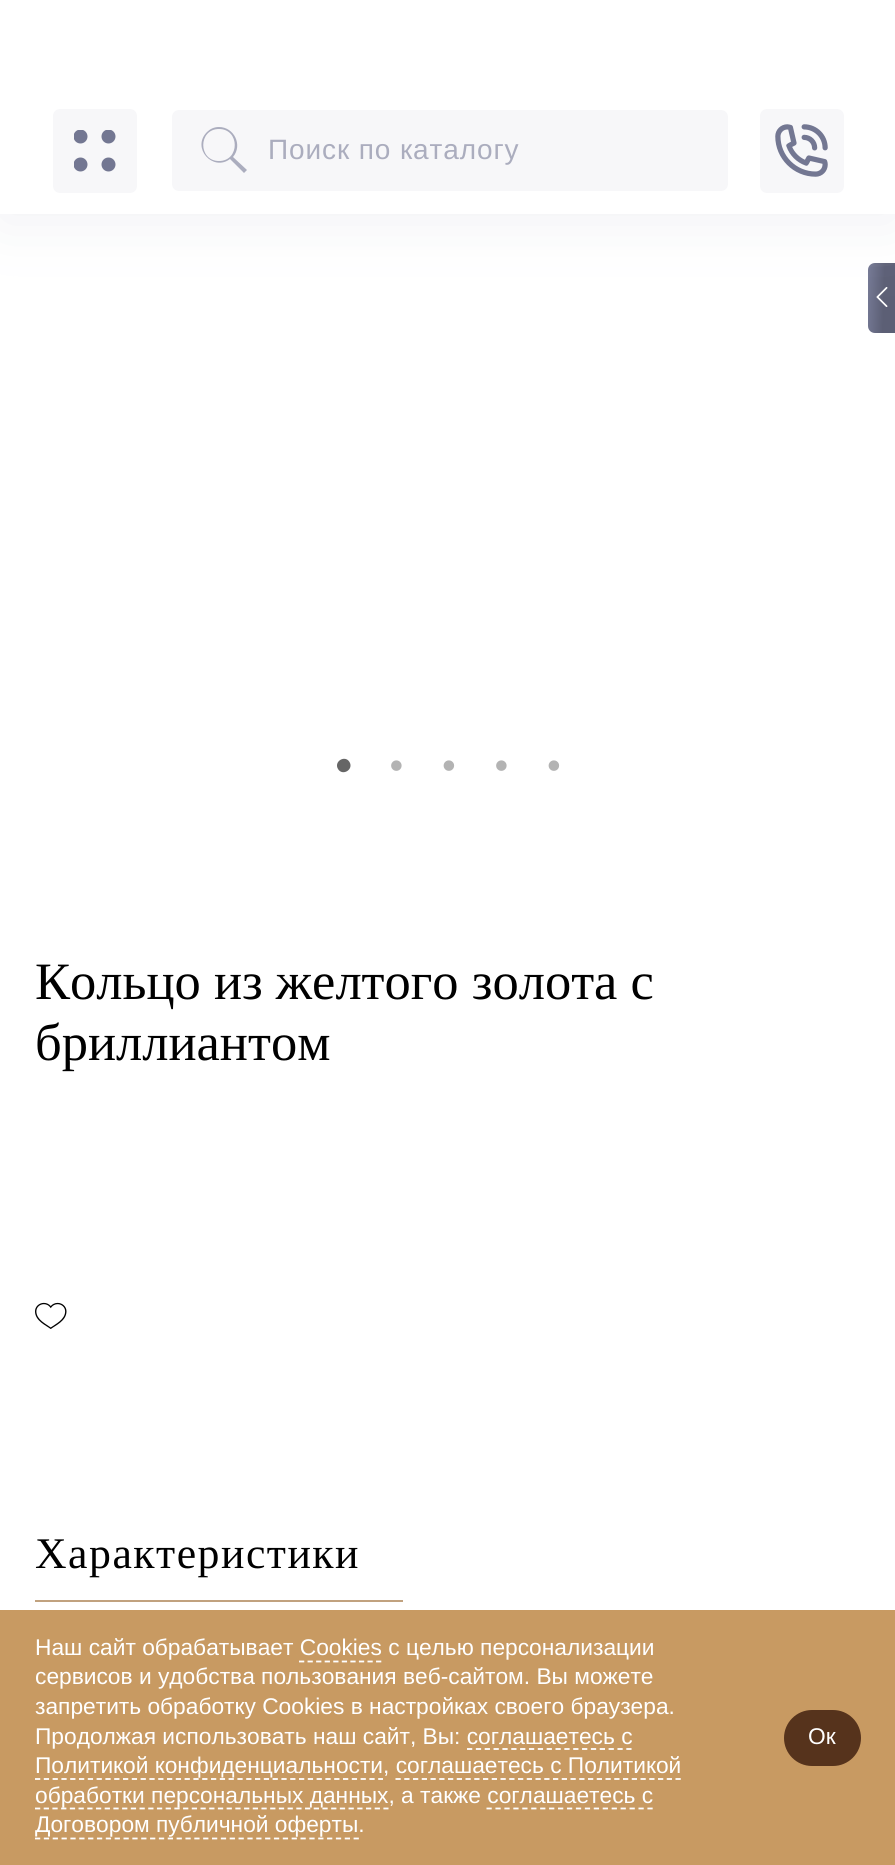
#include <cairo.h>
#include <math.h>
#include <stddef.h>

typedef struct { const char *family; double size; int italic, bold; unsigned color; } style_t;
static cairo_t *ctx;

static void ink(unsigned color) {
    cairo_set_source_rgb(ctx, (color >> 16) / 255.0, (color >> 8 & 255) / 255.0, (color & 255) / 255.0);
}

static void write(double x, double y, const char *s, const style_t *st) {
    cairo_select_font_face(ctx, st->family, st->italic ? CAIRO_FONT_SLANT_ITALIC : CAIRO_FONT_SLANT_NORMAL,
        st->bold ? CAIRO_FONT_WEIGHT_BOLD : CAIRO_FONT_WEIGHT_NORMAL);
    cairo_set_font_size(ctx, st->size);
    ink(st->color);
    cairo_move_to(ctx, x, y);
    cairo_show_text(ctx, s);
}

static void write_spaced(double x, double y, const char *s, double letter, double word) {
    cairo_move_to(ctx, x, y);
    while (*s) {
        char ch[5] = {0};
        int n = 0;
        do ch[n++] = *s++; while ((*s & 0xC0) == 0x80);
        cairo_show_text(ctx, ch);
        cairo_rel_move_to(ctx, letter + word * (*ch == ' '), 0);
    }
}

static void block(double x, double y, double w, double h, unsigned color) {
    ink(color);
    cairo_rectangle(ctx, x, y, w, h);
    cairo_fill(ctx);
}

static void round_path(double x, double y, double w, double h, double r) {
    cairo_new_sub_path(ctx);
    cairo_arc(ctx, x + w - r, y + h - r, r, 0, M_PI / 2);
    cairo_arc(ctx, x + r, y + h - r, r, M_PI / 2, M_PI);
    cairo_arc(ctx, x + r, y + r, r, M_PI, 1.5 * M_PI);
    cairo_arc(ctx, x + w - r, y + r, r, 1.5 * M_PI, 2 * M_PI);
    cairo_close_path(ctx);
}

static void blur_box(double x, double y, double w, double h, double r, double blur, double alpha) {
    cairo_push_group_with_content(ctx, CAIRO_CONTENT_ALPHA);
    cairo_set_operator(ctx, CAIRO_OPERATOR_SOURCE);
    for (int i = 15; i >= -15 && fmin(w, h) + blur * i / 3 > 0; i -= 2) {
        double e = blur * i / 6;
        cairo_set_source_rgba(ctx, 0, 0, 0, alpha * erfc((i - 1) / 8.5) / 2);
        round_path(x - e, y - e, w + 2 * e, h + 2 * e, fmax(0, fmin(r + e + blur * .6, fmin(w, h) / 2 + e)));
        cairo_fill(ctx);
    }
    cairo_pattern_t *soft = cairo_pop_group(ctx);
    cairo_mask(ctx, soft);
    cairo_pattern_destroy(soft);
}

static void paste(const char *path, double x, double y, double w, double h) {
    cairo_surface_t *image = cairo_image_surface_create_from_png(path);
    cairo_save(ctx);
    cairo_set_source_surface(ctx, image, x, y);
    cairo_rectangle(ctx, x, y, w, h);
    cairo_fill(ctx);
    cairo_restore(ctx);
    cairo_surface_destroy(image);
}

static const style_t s1 = {"Liberation Serif", 52.5, 0, 0, 0x000000};
static const style_t s2 = {"Liberation Sans", 22.75, 0, 0, 0xffffff};

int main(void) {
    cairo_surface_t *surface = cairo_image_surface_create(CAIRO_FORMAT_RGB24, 895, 1865);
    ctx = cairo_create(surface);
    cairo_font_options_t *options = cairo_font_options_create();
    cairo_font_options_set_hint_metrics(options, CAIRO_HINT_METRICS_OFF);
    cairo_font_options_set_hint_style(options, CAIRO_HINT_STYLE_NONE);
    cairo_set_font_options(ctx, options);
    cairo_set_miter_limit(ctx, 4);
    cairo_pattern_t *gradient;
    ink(0xffffff);
    cairo_paint(ctx);
    gradient = cairo_pattern_create_linear(868, 297, 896, 298);
    cairo_pattern_add_color_stop_rgba(gradient, 0, 0.451, 0.467, 0.573, 1);
    cairo_pattern_add_color_stop_rgba(gradient, 0.56, 0.361, 0.373, 0.459, 1);
    cairo_set_source(ctx, gradient);
    cairo_pattern_destroy(gradient);
    cairo_new_path(ctx);
    cairo_move_to(ctx, 875, 263);
    cairo_line_to(ctx, 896, 263);
    cairo_line_to(ctx, 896, 333);
    cairo_line_to(ctx, 875, 333);
    cairo_curve_to(ctx, 871, 333, 868, 330, 868, 326);
    cairo_line_to(ctx, 868, 270);
    cairo_curve_to(ctx, 868, 266, 871, 263, 875, 263);
    cairo_close_path(ctx);
    cairo_fill(ctx);
    paste("pic2.png", 876, 287, 12, 20);
    ink(0xe1e2e8);
    blur_box(0, 7, 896, 214, 0, 30.5, 0.47);
    block(0, 0, 895, 214, 0xffffff);
    ink(0xf7f7f9);
    round_path(53, 109, 84, 84, 7);
    cairo_fill(ctx);
    cairo_save(ctx);
    cairo_rectangle(ctx, 74, 130, 42, 42);
    cairo_clip(ctx);
    ink(0x737792);
    cairo_arc(ctx, 80.5, 136.5, 7, 0, 2 * M_PI);
    cairo_fill(ctx);
    cairo_arc(ctx, 108.5, 136.5, 7, 0, 2 * M_PI);
    cairo_fill(ctx);
    cairo_arc(ctx, 80.5, 164.5, 7, 0, 2 * M_PI);
    cairo_fill(ctx);
    cairo_restore(ctx);
    ink(0x737792);
    cairo_arc(ctx, 108.5, 164.5, 7, 0, 2 * M_PI);
    cairo_fill(ctx);
    ink(0xf7f7f9);
    round_path(172, 110, 556, 81, 7);
    cairo_fill(ctx);
    ink(0xabadbe);
    cairo_new_path(ctx);
    cairo_move_to(ctx, 219, 127);
    cairo_curve_to(ctx, 214, 127, 210, 129, 207, 132);
    cairo_curve_to(ctx, 191, 148, 213, 172, 230, 159);
    cairo_line_to(ctx, 244, 173);
    cairo_line_to(ctx, 247, 170);
    cairo_line_to(ctx, 233, 157);
    cairo_curve_to(ctx, 243, 145, 234, 127, 219, 127);
    cairo_close_path(ctx);
    cairo_move_to(ctx, 219, 129);
    cairo_curve_to(ctx, 240, 129, 240, 161, 219, 161);
    cairo_curve_to(ctx, 198, 161, 198, 129, 219, 129);
    cairo_close_path(ctx);
    cairo_fill(ctx);
    cairo_select_font_face(ctx, "Liberation Sans", CAIRO_FONT_SLANT_NORMAL, CAIRO_FONT_WEIGHT_NORMAL);
    cairo_set_font_size(ctx, 28);
    write_spaced(268, 159, "Поиск по каталогу", 0.9, 0);
    ink(0xf7f7f9);
    round_path(760, 109, 84, 84, 7);
    cairo_fill(ctx);
    paste("pic1.png", 775, 124, 53, 53);
    ink(0x666666);
    cairo_new_path(ctx);
    cairo_move_to(ctx, 349.5, 762);
    cairo_curve_to(ctx, 354, 769.5, 342.5, 776.5, 338, 769);
    cairo_curve_to(ctx, 333.5, 761.5, 345, 754.5, 349.5, 762);
    cairo_close_path(ctx);
    cairo_fill(ctx);
    paste("pic3.png", 391, 760, 11, 11);
    paste("pic4.png", 443, 760, 12, 11);
    paste("pic3.png", 496, 760, 11, 11);
    paste("pic4.png", 548, 760, 12, 11);
    write(35, 999, "Кольцо из желтого золота с", &s1);
    write(35, 1060, "бриллиантом", &s1);
    paste("pic5.png", 35, 1302, 32, 27);
    block(35, 1600, 368, 2, 0xc1a27f);
    cairo_set_font_size(ctx, 43.75);
    ink(0x000000);
    write_spaced(35, 1568, "Характеристики", 1.5, 0);
    block(0, 1610, 895, 255, 0xc89a62);
    write(35, 1655, "Наш сайт обрабатывает Cookies с целью персонализации", &s2);
    cairo_new_path(ctx);
    cairo_move_to(ctx, 299, 1661.5);
    cairo_line_to(ctx, 381.5, 1661.5);
    cairo_set_line_width(ctx, 1.8);
    cairo_set_dash(ctx, (double[]){5.25, 3.31}, 2, 0);
    cairo_stroke(ctx);
    write(35, 1684, "сервисов и удобства пользования веб-сайтом. Вы можете", &s2);
    write(35, 1714, "запретить обработку Cookies в настройках своего браузера.", &s2);
    write(35, 1744, "Продолжая использовать наш сайт, Вы: соглашаетесь с", &s2);
    write(35, 1773, "Политикой конфиденциальности, соглашаетесь с Политикой", &s2);
    cairo_new_path(ctx);
    cairo_move_to(ctx, 467, 1749);
    cairo_line_to(ctx, 632, 1749);
    cairo_set_dash(ctx, (double[]){5.25, 3.6}, 2, 0);
    cairo_stroke(ctx);
    cairo_new_path(ctx);
    cairo_move_to(ctx, 35, 1779);
    cairo_line_to(ctx, 383, 1779);
    cairo_set_dash(ctx, (double[]){5.25, 3.55}, 2, 0);
    cairo_stroke(ctx);
    cairo_new_path(ctx);
    cairo_move_to(ctx, 35, 1808.5);
    cairo_line_to(ctx, 388.5, 1808.5);
    cairo_set_dash(ctx, (double[]){5.25, 3.46}, 2, 0);
    cairo_stroke(ctx);
    write(35, 1803, "обработки персональных данных, а также соглашаетесь с", &s2);
    cairo_new_path(ctx);
    cairo_move_to(ctx, 395.5, 1779);
    cairo_line_to(ctx, 681, 1779);
    cairo_set_dash(ctx, (double[]){5.25, 3.5}, 2, 0);
    cairo_stroke(ctx);
    write(35, 1832, "Договором публичной оферты.", &s2);
    cairo_new_path(ctx);
    cairo_move_to(ctx, 486.5, 1808.5);
    cairo_line_to(ctx, 653, 1808.5);
    cairo_set_dash(ctx, (double[]){5.25, 3.69}, 2, 0);
    cairo_stroke(ctx);
    cairo_new_path(ctx);
    cairo_move_to(ctx, 35, 1838.5);
    cairo_line_to(ctx, 359, 1838.5);
    cairo_set_dash(ctx, (double[]){5.25, 3.6}, 2, 0);
    cairo_stroke(ctx);
    ink(0x56331c);
    round_path(784, 1710, 77, 56, 28);
    cairo_fill(ctx);
    write(808, 1744, "Ок", &s2);
    cairo_surface_write_to_png(surface, "screenshot.png");
    cairo_font_options_destroy(options);
    cairo_destroy(ctx);
    cairo_surface_destroy(surface);
    return 0;
}
